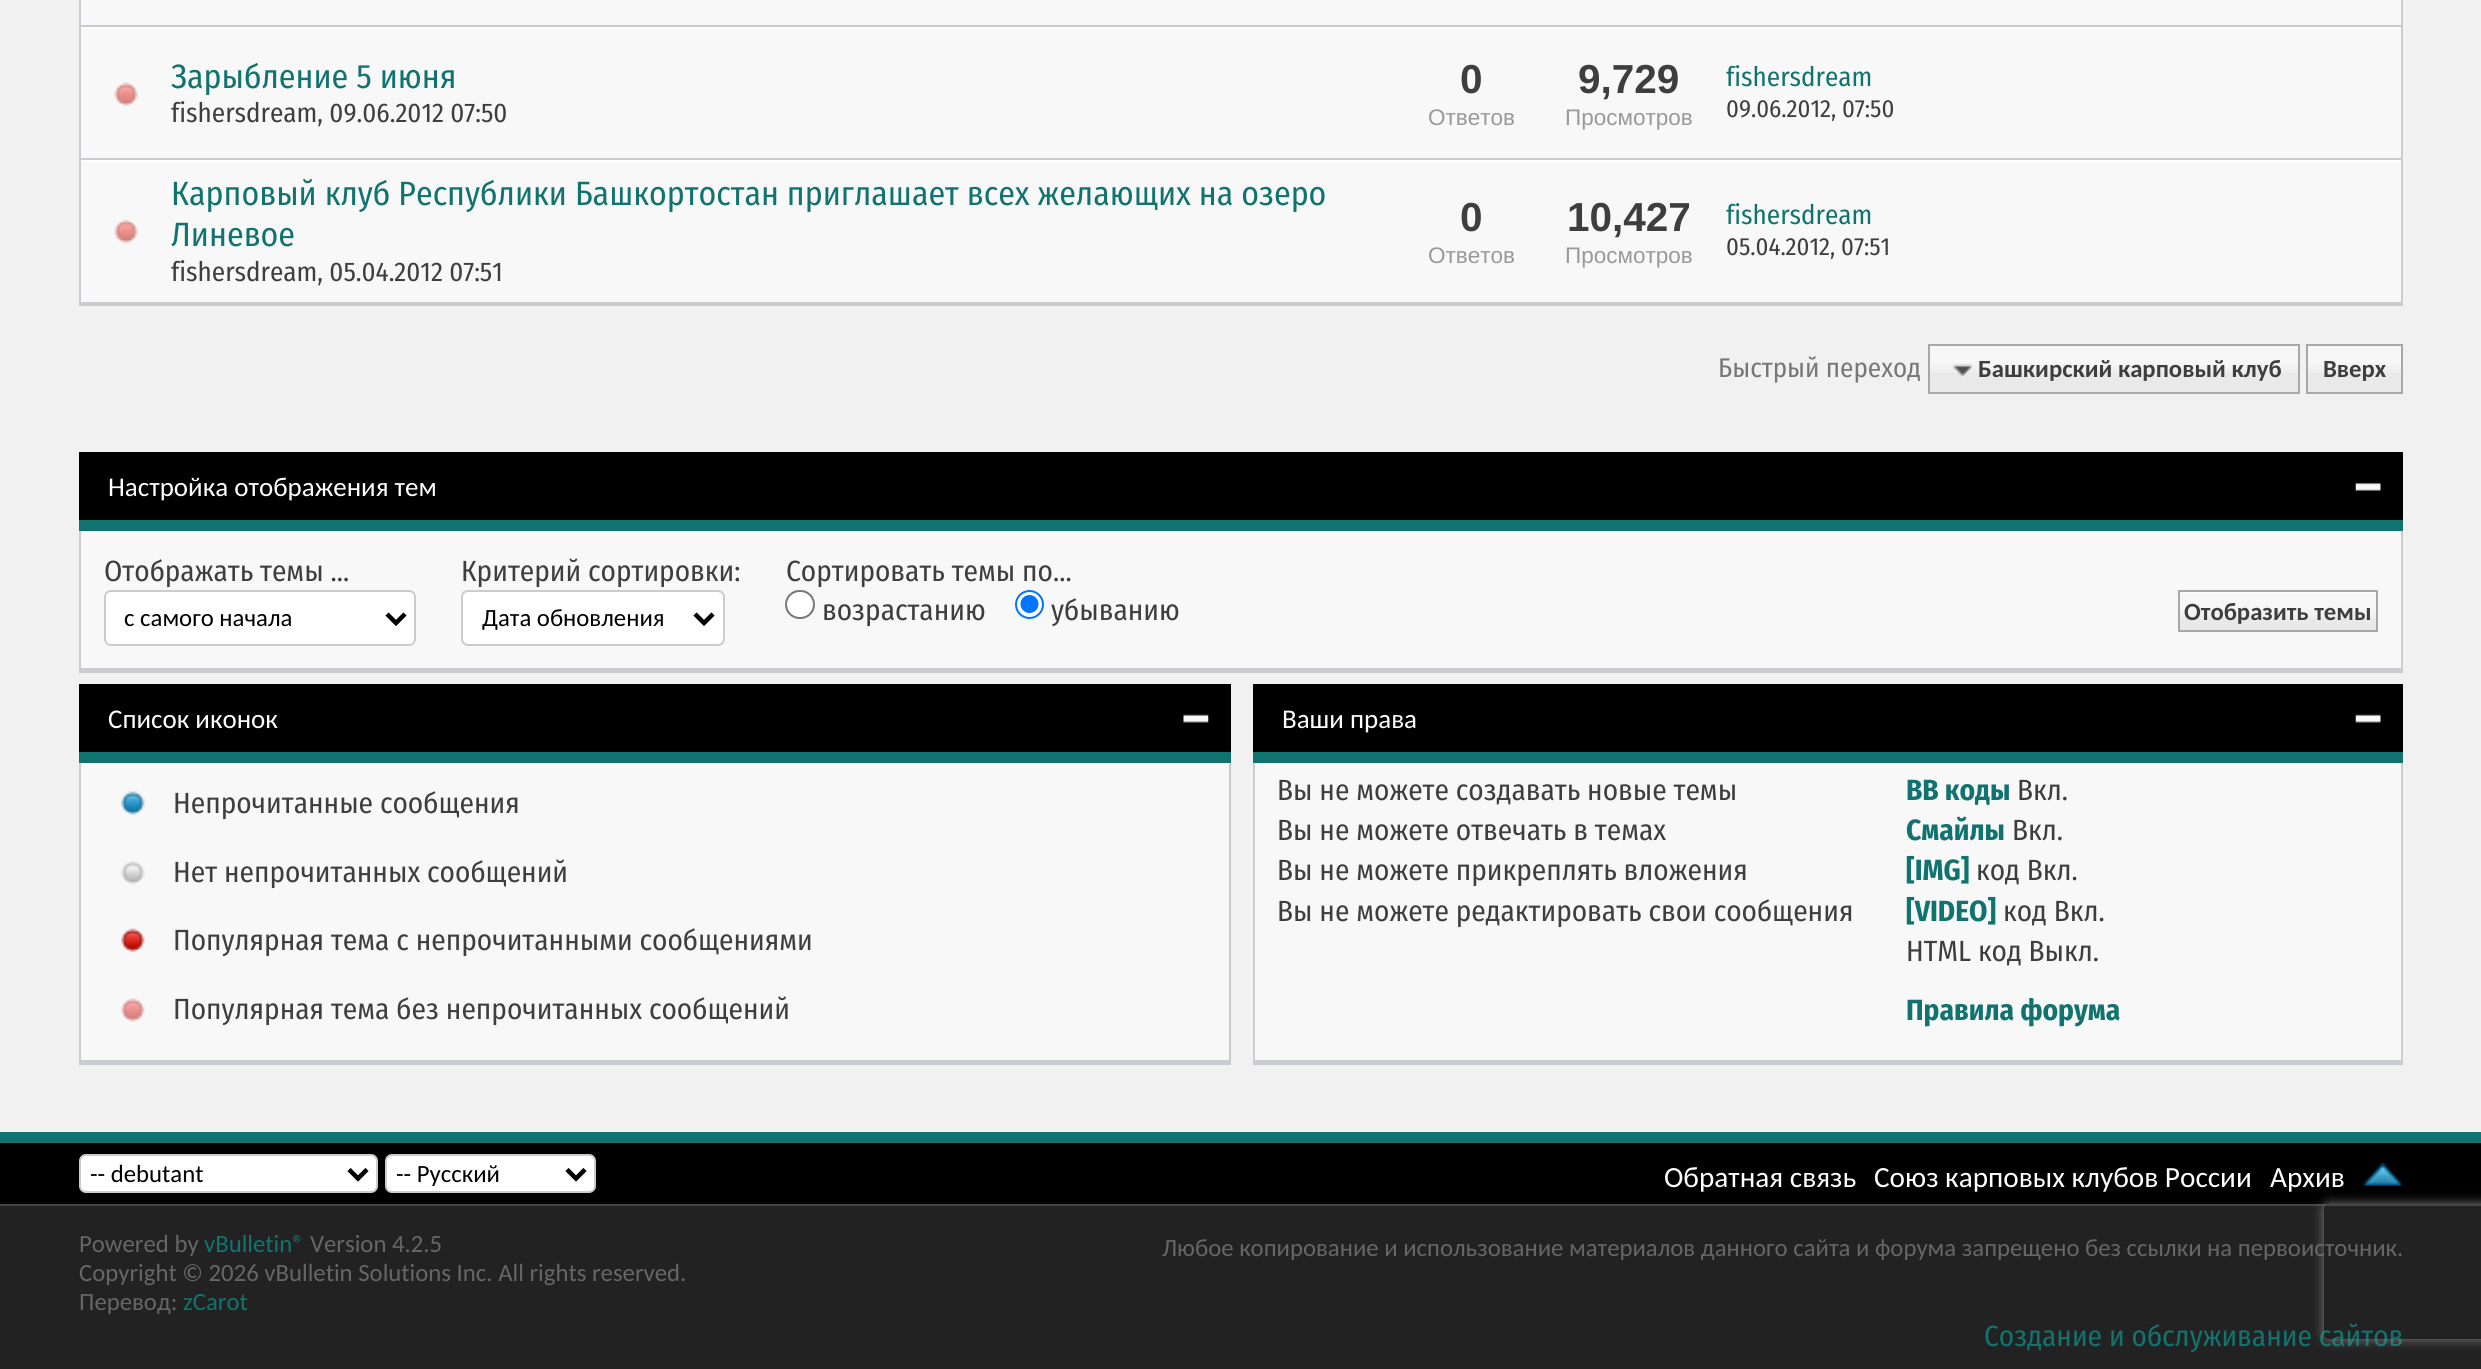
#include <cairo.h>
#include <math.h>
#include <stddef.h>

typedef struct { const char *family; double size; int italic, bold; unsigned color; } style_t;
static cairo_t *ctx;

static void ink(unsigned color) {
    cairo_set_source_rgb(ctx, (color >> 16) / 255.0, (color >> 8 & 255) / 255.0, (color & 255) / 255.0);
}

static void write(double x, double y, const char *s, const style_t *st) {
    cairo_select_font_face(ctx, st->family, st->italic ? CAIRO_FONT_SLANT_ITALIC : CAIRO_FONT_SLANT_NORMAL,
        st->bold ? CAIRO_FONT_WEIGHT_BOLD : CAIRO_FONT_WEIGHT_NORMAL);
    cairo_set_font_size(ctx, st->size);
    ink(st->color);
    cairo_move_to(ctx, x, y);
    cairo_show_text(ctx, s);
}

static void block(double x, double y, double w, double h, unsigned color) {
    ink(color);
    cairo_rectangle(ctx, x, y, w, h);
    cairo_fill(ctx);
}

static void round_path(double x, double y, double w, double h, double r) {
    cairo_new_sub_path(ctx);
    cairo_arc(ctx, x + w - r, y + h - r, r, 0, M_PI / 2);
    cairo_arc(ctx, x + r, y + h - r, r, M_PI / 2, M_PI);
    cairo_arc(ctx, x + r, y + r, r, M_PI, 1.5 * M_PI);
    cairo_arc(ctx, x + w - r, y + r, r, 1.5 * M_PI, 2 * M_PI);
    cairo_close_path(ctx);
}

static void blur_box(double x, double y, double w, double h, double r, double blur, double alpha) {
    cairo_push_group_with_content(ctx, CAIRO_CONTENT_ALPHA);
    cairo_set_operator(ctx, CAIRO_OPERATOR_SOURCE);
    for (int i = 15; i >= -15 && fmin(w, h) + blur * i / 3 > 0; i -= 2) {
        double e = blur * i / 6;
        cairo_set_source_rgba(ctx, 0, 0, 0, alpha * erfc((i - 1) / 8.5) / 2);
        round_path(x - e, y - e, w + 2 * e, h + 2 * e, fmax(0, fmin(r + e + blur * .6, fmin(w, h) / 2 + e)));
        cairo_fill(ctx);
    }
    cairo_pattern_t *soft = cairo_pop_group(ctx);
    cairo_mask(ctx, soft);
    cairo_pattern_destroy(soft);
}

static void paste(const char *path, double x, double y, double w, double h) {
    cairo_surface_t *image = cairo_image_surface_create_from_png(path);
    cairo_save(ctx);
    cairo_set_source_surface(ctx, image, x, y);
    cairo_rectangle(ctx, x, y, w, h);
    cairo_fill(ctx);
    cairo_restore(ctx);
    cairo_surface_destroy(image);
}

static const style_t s1 = {"Fira Sans Condensed", 33.75, 0, 0, 0x11736f};
static const style_t s2 = {"Fira Sans Condensed", 27, 0, 0, 0x3e3e3e};
static const style_t s3 = {"Liberation Sans", 40.5, 0, 1, 0x3e3e3e};
static const style_t s4 = {"Liberation Sans", 22.5, 0, 0, 0x999999};
static const style_t s5 = {"Fira Sans Condensed", 27, 0, 0, 0x11736f};
static const style_t s6 = {"Fira Sans Condensed", 24.75, 0, 0, 0x3e3e3e};
static const style_t s7 = {"Fira Sans Condensed", 27, 0, 0, 0x777777};
static const style_t s8 = {"Carlito", 24.75, 0, 1, 0x3e3e3e};
static const style_t s9 = {"Carlito", 27, 0, 0, 0xffffff};
static const style_t s10 = {"Fira Sans Condensed", 29.25, 0, 0, 0x3e3e3e};
static const style_t s11 = {"Carlito", 24.75, 0, 0, 0x000000};
static const style_t s12 = {"Fira Sans Condensed", 29.25, 0, 1, 0x11736f};
static const style_t s13 = {"Carlito", 29.25, 0, 0, 0xffffff};
static const style_t s14 = {"Carlito", 24.75, 0, 0, 0x666666};
static const style_t s15 = {"Carlito", 24.75, 0, 0, 0x11736f};
static const style_t s16 = {"Fira Sans Condensed", 29.25, 0, 0, 0x11736f};

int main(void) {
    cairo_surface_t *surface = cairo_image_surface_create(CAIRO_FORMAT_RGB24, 2481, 1369);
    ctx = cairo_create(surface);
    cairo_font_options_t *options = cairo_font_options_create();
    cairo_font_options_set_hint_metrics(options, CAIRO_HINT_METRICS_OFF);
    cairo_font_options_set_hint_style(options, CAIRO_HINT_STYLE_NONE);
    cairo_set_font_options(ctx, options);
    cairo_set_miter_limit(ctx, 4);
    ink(0xf1f1f1);
    cairo_paint(ctx);
    block(2401, 0, 2, 306, 0xcbcccf);
    block(79, 304, 2324, 2, 0xcbcccf);
    block(79, 0, 2, 306, 0xcbcccf);
    block(81, 0, 2320, 25, 0xf8f8f8);
    block(81, 25, 2320, 2, 0xcbcccf);
    block(81, 29, 2320, 129, 0xf8f8f8);
    block(81, 27, 2320, 2, 0xffffff);
    block(81, 158, 2320, 2, 0xcbcccf);
    paste("pic1.png", 114, 82, 24, 24);
    write(171, 88, "Зарыбление 5 июня", &s1);
    write(171, 122, "fishersdream, 09.06.2012 07:50", &s2);
    write(1460, 93, "0", &s3);
    write(1428, 125, "Ответов", &s4);
    write(1578, 93, "9,729", &s3);
    write(1565, 125, "Просмотров", &s4);
    write(1726, 86, "fishersdream", &s5);
    write(1726, 117, "09.06.2012, 07:50", &s6);
    block(81, 162, 2320, 140, 0xf8f8f8);
    block(81, 160, 2320, 2, 0xffffff);
    block(81, 302, 2320, 2, 0xcbcccf);
    paste("pic2.png", 114, 219, 24, 25);
    write(171, 205, "Карповый клуб Республики Башкортостан приглашает всех желающих на озеро", &s1);
    write(171, 246, "Линевое", &s1);
    write(171, 281, "fishersdream, 05.04.2012 07:51", &s2);
    write(1460, 231, "0", &s3);
    write(1428, 263, "Ответов", &s4);
    write(1567, 231, "10,427", &s3);
    write(1565, 263, "Просмотров", &s4);
    write(1726, 224, "fishersdream", &s5);
    write(1726, 255, "05.04.2012, 07:51", &s6);
    write(1718, 377, "Быстрый переход", &s7);
    block(1930, 346, 368, 46, 0xe9e9e9);
    paste("pic3.png", 1930, 346, 368, 27);
    block(2308, 346, 93, 46, 0xe9e9e9);
    paste("pic4.png", 2308, 346, 93, 27);
    cairo_rectangle(ctx, 1929, 345, 370, 48);
    ink(0xa8a8a8);
    cairo_stroke(ctx);
    paste("pic5.png", 1952, 364, 22, 14);
    write(1978, 377, "Башкирский карповый клуб", &s8);
    cairo_rectangle(ctx, 2307, 345, 95, 48);
    ink(0xa8a8a8);
    cairo_stroke(ctx);
    write(2323, 377, "Вверх", &s8);
    block(79, 452, 2324, 68, 0x000000);
    block(79, 520, 2324, 11, 0x11736f);
    write(108, 496, "Настройка отображения тем", &s9);
    paste("pic6.png", 2355, 483, 26, 8);
    block(81, 531, 2320, 137, 0xf8f8f8);
    block(2401, 531, 2, 142, 0xcbcccf);
    block(79, 668, 2324, 5, 0xcbcccf);
    block(79, 531, 2, 142, 0xcbcccf);
    write(104, 581, "Отображать темы ...", &s10);
    ink(0xffffff);
    round_path(105, 591, 310, 54, 6);
    cairo_fill_preserve(ctx);
    ink(0xcbcccf);
    cairo_stroke(ctx);
    cairo_new_path(ctx);
    cairo_move_to(ctx, 387, 614);
    cairo_line_to(ctx, 396, 623);
    cairo_line_to(ctx, 405, 614);
    ink(0x000000);
    cairo_set_line_width(ctx, 4.5);
    cairo_stroke(ctx);
    write(124, 626, "с самого начала", &s11);
    write(461, 581, "Критерий сортировки:", &s10);
    ink(0xffffff);
    round_path(462, 591, 262, 54, 6);
    cairo_fill_preserve(ctx);
    ink(0xcbcccf);
    cairo_set_line_width(ctx, 2);
    cairo_stroke(ctx);
    cairo_new_path(ctx);
    cairo_move_to(ctx, 695, 614);
    cairo_line_to(ctx, 704, 623);
    cairo_line_to(ctx, 713, 614);
    ink(0x000000);
    cairo_set_line_width(ctx, 4.5);
    cairo_stroke(ctx);
    cairo_save(ctx);
    cairo_rectangle(ctx, 482, 601, 195, 34);
    cairo_clip(ctx);
    write(482, 626, "Дата обновления", &s11);
    cairo_restore(ctx);
    write(786, 581, "Сортировать темы по...", &s10);
    ink(0xffffff);
    round_path(786, 591, 28, 27, 13.5);
    cairo_fill_preserve(ctx);
    ink(0x767676);
    cairo_set_line_width(ctx, 2);
    cairo_stroke(ctx);
    write(822, 620, "возрастанию", &s10);
    ink(0xffffff);
    cairo_new_path(ctx);
    cairo_arc(ctx, 1029.5, 604.5, 13.5, 0, 2 * M_PI);
    cairo_fill_preserve(ctx);
    ink(0x0075ff);
    cairo_stroke(ctx);
    cairo_arc(ctx, 1029.5, 604, 9, 0, 2 * M_PI);
    cairo_fill(ctx);
    write(1051, 620, "убыванию", &s10);
    block(2180, 592, 196, 38, 0xe9e9e9);
    paste("pic7.png", 2180, 592, 196, 26);
    cairo_rectangle(ctx, 2179, 591, 198, 40);
    ink(0xa8a8a8);
    cairo_stroke(ctx);
    write(2184, 620, "Отобразить темы", &s8);
    block(79, 684, 1152, 68, 0x000000);
    block(79, 752, 1152, 11, 0x11736f);
    write(108, 728, "Список иконок", &s9);
    paste("pic8.png", 1183, 714, 26, 9);
    block(81, 763, 1148, 297, 0xf8f8f8);
    block(1229, 763, 2, 301, 0xcbcccf);
    block(79, 1060, 1152, 5, 0xcbcccf);
    block(79, 763, 2, 301, 0xcbcccf);
    paste("pic9.png", 121, 791, 24, 24);
    write(173, 813, "Непрочитанные сообщения", &s10);
    paste("pic10.png", 121, 861, 24, 24);
    write(173, 882, "Нет непрочитанных сообщений", &s10);
    paste("pic11.png", 121, 928, 24, 24);
    write(173, 950, "Популярная тема с непрочитанными сообщениями", &s10);
    paste("pic12.png", 121, 998, 24, 24);
    write(173, 1019, "Популярная тема без непрочитанных сообщений", &s10);
    block(1253, 684, 1150, 68, 0x000000);
    block(1253, 752, 1150, 11, 0x11736f);
    write(1282, 728, "Ваши права", &s9);
    paste("pic13.png", 2355, 714, 26, 9);
    block(1255, 763, 1146, 297, 0xf8f8f8);
    block(2401, 763, 2, 301, 0xcbcccf);
    block(1253, 1060, 1150, 5, 0xcbcccf);
    block(1253, 763, 2, 301, 0xcbcccf);
    write(1277, 800, "Вы не можете создавать новые темы", &s10);
    write(1277, 840, "Вы не можете отвечать в темах", &s10);
    write(1277, 880, "Вы не можете прикреплять вложения", &s10);
    write(1277, 921, "Вы не можете редактировать свои сообщения", &s10);
    write(1906, 800, "BB коды", &s12);
    write(2017, 800, "Вкл.", &s10);
    write(1906, 840, "Смайлы", &s12);
    write(2012, 840, "Вкл.", &s10);
    write(1906, 880, "[IMG]", &s12);
    write(1976, 880, "код Вкл.", &s10);
    write(1906, 921, "[VIDEO]", &s12);
    write(2003, 921, "код Вкл.", &s10);
    write(1906, 961, "HTML код Выкл.", &s10);
    write(1906, 1020, "Правила форума", &s12);
    block(0, 1206, 2481, 163, 0x222222);
    block(0, 1143, 2481, 61, 0x000000);
    block(0, 1132, 2481, 11, 0x11736f);
    ink(0xffffff);
    round_path(80, 1155, 297, 37, 6);
    cairo_fill_preserve(ctx);
    ink(0xcbcccf);
    cairo_stroke(ctx);
    cairo_new_path(ctx);
    cairo_move_to(ctx, 349, 1169.5);
    cairo_line_to(ctx, 358, 1178.5);
    cairo_line_to(ctx, 367, 1169.5);
    ink(0x000000);
    cairo_set_line_width(ctx, 4.5);
    cairo_stroke(ctx);
    write(90, 1182, "-- debutant", &s11);
    ink(0xffffff);
    round_path(386, 1155, 209, 37, 6);
    cairo_fill_preserve(ctx);
    ink(0xcbcccf);
    cairo_set_line_width(ctx, 2);
    cairo_stroke(ctx);
    cairo_new_path(ctx);
    cairo_move_to(ctx, 567, 1169.5);
    cairo_line_to(ctx, 576, 1178.5);
    cairo_line_to(ctx, 585, 1169.5);
    ink(0x000000);
    cairo_set_line_width(ctx, 4.5);
    cairo_stroke(ctx);
    write(396, 1182, "-- Русский", &s11);
    write(1664, 1187, "Обратная связь", &s13);
    write(1874, 1187, "Союз карповых клубов России", &s13);
    write(2270, 1187, "Архив", &s13);
    paste("pic14.png", 2364, 1163, 38, 23);
    block(0, 1204, 2481, 2, 0x444444);
    write(79, 1252, "Powered by", &s14);
    write(204, 1252, "vBulletin®", &s15);
    write(310, 1252, "Version 4.2.5", &s14);
    write(79, 1281, "Copyright © 2026 vBulletin Solutions Inc. All rights reserved.", &s14);
    write(79, 1310, "Перевод:", &s14);
    write(183, 1310, "zCarot", &s15);
    write(1162, 1256, "Любое копирование и использование материалов данного сайта и форума запрещено без ссылки на первоисточник.", &s14);
    write(1984, 1346, "Создание и обслуживание сайтов", &s16);
    cairo_save(ctx);
    cairo_set_fill_rule(ctx, CAIRO_FILL_RULE_EVEN_ODD);
    cairo_new_path(ctx);
    cairo_move_to(ctx, 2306, 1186);
    cairo_line_to(ctx, 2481, 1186);
    cairo_line_to(ctx, 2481, 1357);
    cairo_line_to(ctx, 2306, 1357);
    cairo_close_path(ctx);
    cairo_move_to(ctx, 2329, 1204);
    cairo_line_to(ctx, 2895, 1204);
    cairo_curve_to(ctx, 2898, 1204, 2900, 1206, 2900, 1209);
    cairo_line_to(ctx, 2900, 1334);
    cairo_curve_to(ctx, 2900, 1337, 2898, 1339, 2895, 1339);
    cairo_line_to(ctx, 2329, 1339);
    cairo_curve_to(ctx, 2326, 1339, 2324, 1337, 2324, 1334);
    cairo_line_to(ctx, 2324, 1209);
    cairo_curve_to(ctx, 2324, 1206, 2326, 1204, 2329, 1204);
    cairo_close_path(ctx);
    cairo_clip(ctx);
    ink(0x808080);
    blur_box(2324, 1204, 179, 135, 5, 5.5, 1);
    cairo_restore(ctx);
    cairo_surface_write_to_png(surface, "screenshot.png");
    cairo_font_options_destroy(options);
    cairo_destroy(ctx);
    cairo_surface_destroy(surface);
    return 0;
}
